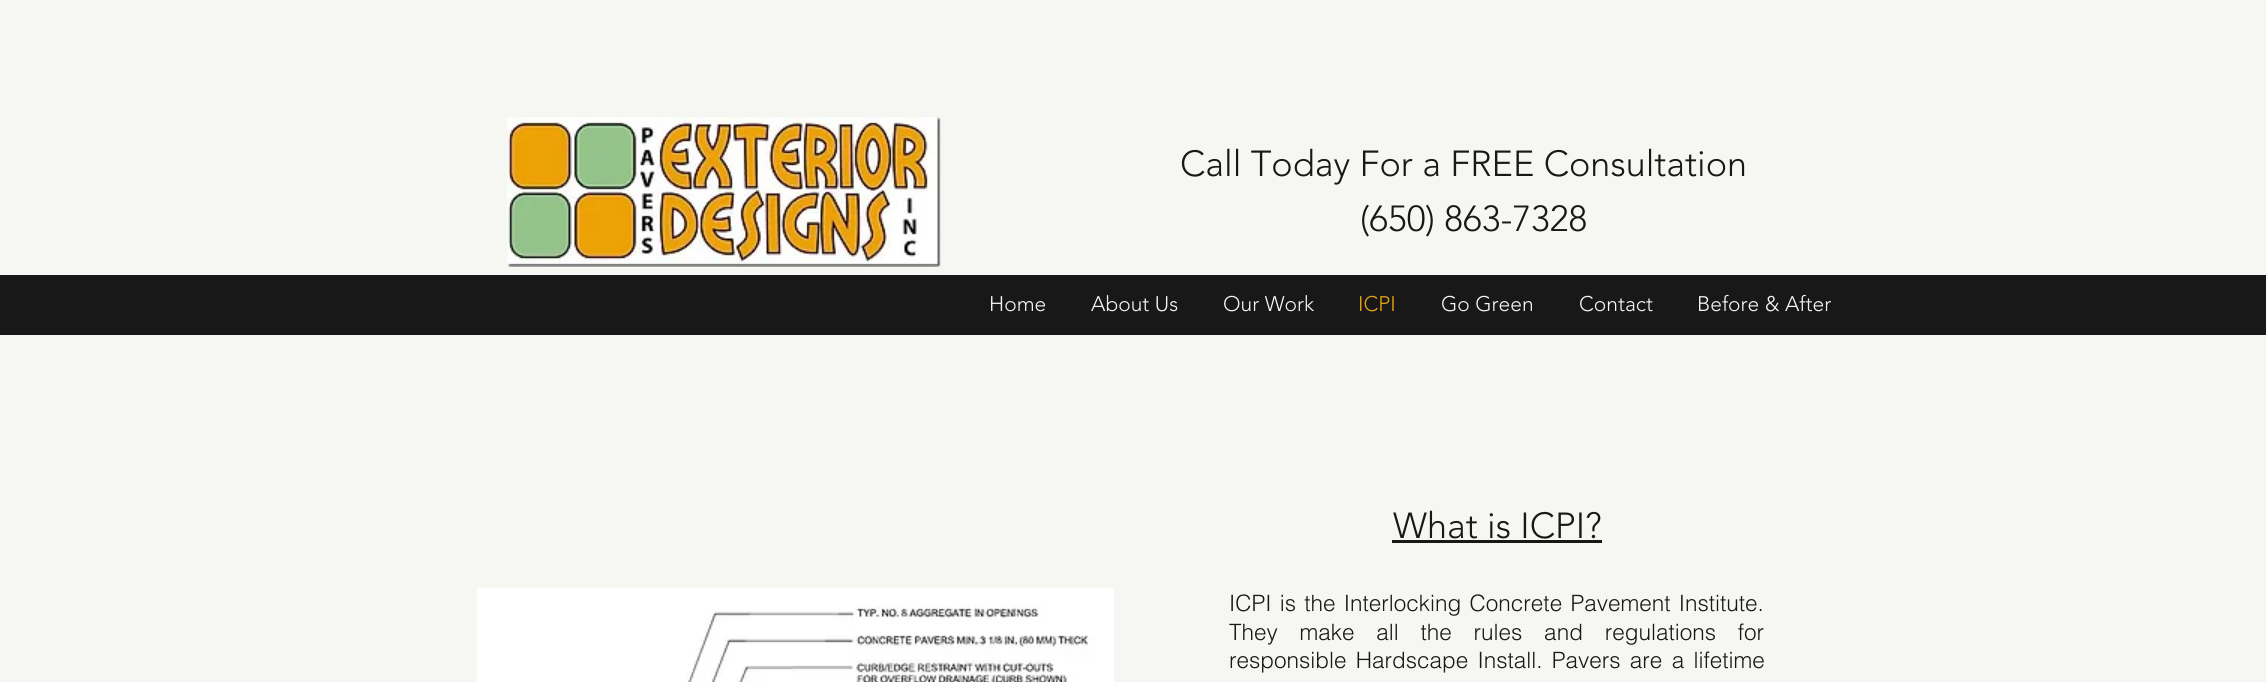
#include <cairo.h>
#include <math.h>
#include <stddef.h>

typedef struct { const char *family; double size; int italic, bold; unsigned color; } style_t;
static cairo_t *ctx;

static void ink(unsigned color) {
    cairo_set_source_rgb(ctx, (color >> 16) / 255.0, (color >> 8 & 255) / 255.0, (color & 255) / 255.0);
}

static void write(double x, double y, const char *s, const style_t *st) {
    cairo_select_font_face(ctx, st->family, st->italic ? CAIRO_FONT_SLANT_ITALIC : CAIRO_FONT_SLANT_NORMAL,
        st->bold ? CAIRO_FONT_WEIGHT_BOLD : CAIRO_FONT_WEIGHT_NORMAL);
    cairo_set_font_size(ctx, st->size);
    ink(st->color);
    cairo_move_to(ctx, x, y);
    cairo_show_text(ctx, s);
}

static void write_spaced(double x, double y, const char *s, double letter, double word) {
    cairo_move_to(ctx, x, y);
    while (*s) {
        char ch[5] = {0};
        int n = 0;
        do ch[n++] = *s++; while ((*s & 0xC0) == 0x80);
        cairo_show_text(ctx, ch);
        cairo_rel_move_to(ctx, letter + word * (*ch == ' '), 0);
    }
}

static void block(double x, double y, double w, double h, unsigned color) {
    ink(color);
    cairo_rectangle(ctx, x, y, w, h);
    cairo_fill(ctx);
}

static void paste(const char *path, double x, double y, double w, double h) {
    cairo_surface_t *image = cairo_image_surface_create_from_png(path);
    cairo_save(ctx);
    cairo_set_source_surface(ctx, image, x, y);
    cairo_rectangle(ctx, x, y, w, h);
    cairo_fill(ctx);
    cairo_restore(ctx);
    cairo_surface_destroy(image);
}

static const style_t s1 = {"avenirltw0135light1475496 Light", 36, 0, 0, 0x181818};
static const style_t s2 = {"avenirltw0135light1475496 Light", 21, 0, 0, 0xf6f7f2};
static const style_t s3 = {"avenirltw0135light1475496 Light", 21, 0, 0, 0xeba30a};

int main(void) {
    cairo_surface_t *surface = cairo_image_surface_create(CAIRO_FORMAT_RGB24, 2266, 682);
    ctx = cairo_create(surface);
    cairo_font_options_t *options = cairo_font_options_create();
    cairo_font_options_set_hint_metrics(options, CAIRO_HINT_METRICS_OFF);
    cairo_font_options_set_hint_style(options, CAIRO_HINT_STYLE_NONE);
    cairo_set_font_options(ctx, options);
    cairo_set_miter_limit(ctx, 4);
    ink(0xf6f7f2);
    cairo_paint(ctx);
    paste("pic1.png", 507, 117, 434, 150);
    write(1180, 176, "Call Today For a FREE Consultation", &s1);
    write(1360, 231, "(650) 863-7328", &s1);
    block(0, 275, 2266, 60, 0x181818);
    write(989, 311, "Home", &s2);
    write(1091, 311, "About Us", &s2);
    write(1223, 311, "Our Work", &s2);
    write(1358, 311, "ICPI", &s3);
    write(1441, 311, "Go Green", &s2);
    write(1579, 311, "Contact", &s2);
    write(1697, 311, "Before & After", &s2);
    paste("pic2.png", 477, 588, 637, 94);
    write(1393, 538, "What is ICPI?", &s1);
    block(1392, 540, 210, 3, 0x181818);
    cairo_select_font_face(ctx, "helvetica Light", CAIRO_FONT_SLANT_NORMAL, CAIRO_FONT_WEIGHT_NORMAL);
    cairo_set_font_size(ctx, 22.5);
    write_spaced(1229, 611, "ICPI is the Interlocking Concrete Pavement Institute.", 0, 2);
    write_spaced(1229, 640, "They make all the rules and regulations for", 0, 15.5);
    write_spaced(1229, 668, "responsible Hardscape Install. Pavers are a lifetime", 0, 3);
    cairo_surface_write_to_png(surface, "screenshot.png");
    cairo_font_options_destroy(options);
    cairo_destroy(ctx);
    cairo_surface_destroy(surface);
    return 0;
}
